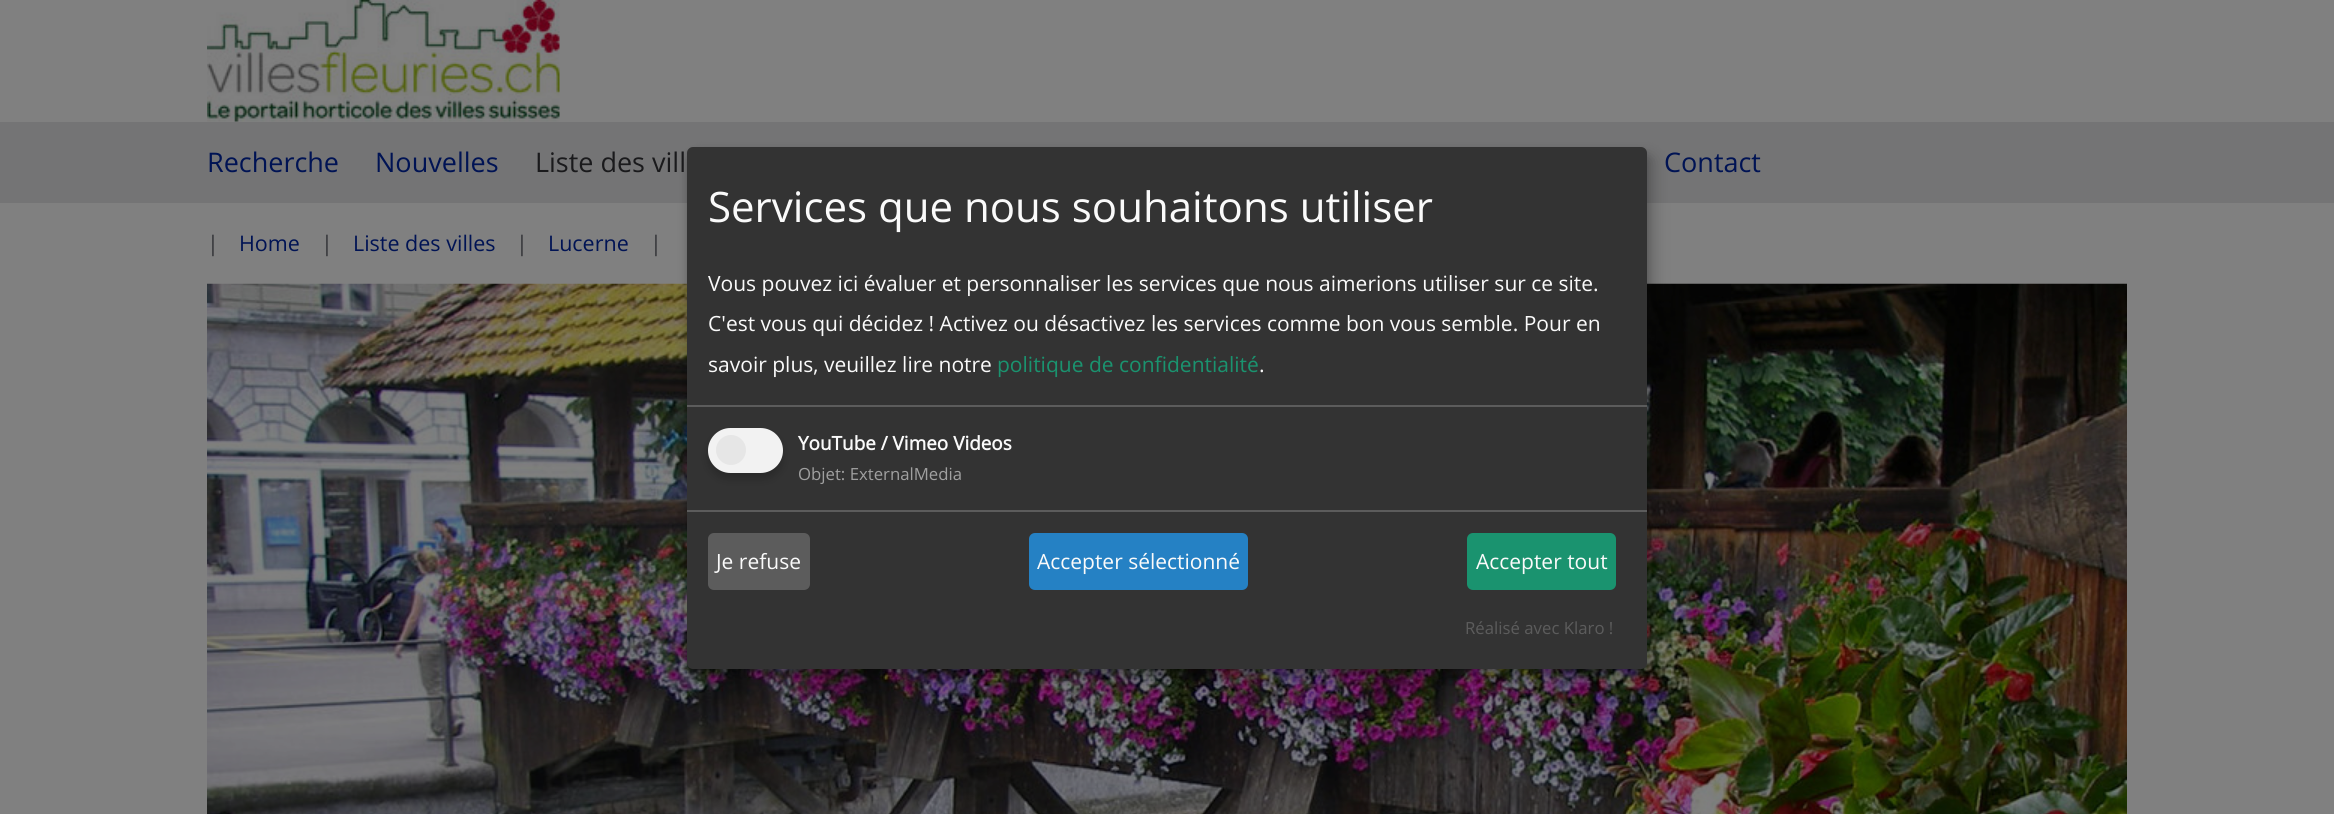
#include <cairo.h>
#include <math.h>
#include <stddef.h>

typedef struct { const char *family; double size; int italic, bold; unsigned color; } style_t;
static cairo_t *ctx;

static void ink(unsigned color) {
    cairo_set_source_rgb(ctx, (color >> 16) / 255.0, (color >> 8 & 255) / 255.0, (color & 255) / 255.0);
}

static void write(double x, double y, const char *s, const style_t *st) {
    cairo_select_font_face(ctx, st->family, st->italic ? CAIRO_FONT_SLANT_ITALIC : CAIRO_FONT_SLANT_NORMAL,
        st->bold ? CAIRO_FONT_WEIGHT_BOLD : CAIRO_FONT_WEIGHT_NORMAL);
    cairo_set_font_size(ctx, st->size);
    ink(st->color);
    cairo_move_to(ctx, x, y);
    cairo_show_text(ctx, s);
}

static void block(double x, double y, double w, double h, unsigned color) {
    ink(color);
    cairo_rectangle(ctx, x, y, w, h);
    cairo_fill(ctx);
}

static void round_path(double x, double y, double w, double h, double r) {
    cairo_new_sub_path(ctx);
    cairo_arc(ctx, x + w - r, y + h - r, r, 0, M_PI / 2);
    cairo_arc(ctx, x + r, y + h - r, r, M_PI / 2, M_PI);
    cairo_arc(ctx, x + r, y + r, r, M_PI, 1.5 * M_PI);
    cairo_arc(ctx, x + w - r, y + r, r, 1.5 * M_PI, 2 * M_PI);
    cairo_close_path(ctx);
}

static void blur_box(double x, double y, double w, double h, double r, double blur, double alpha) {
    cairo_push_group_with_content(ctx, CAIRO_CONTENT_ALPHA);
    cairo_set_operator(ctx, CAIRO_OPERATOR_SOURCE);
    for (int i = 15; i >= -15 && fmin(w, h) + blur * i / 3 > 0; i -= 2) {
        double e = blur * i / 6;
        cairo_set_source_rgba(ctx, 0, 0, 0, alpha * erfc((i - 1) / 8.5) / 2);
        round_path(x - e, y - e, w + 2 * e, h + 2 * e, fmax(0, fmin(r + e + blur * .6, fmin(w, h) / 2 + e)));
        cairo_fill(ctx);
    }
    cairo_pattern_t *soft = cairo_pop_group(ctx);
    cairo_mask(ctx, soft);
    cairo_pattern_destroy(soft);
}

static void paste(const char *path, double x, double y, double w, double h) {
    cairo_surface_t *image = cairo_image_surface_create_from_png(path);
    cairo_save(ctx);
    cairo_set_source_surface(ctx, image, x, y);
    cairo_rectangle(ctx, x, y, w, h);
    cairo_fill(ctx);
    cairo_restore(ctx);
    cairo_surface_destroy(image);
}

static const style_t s1 = {"Open Sans", 27, 0, 0, 0x001354};
static const style_t s2 = {"Open Sans", 27, 0, 0, 0x1a1a1c};
static const style_t s3 = {"Open Sans", 21.5, 0, 0, 0x323337};
static const style_t s4 = {"Open Sans", 21.5, 0, 0, 0x001354};
static const style_t s5 = {"Open Sans", 42, 0, 0, 0xfafafa};
static const style_t s6 = {"Open Sans", 21, 0, 0, 0xfafafa};
static const style_t s7 = {"Open Sans", 21, 0, 0, 0x1a936f};
static const style_t s8 = {"Open Sans", 18.9, 0, 1, 0xfafafa};
static const style_t s9 = {"Open Sans", 16.75, 0, 0, 0xa0a0a0};
static const style_t s10 = {"Open Sans", 16.75, 0, 0, 0x5c5c5c};

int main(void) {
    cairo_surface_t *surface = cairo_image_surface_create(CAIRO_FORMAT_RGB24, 2334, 814);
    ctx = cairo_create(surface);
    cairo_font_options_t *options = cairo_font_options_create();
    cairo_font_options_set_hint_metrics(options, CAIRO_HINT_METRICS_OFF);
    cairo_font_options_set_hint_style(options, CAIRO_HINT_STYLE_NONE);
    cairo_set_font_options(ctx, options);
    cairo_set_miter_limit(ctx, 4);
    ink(0x808080);
    cairo_paint(ctx);
    paste("pic1.png", 207, 0, 353, 122);
    block(0, 122, 2334, 81, 0x747475);
    write(207, 172, "Recherche", &s1);
    write(375, 172, "Nouvelles", &s1);
    write(535, 172, "Liste des vill", &s2);
    write(1664, 172, "Contact", &s1);
    write(207, 251, "|", &s3);
    write(239, 251, "Home", &s4);
    write(321, 251, "|", &s3);
    write(353, 251, "Liste des villes", &s4);
    write(516, 251, "|", &s3);
    write(548, 251, "Lucerne", &s4);
    write(650, 251, "|", &s3);
    paste("pic2.png", 207, 283, 1920, 531);
    ink(0x000000);
    blur_box(695, 155, 960, 522, 6, 7.5, 0.19);
    blur_box(687, 153, 960, 522, 6, 4.5, 0.2);
    ink(0x333333);
    round_path(687, 147, 960, 522, 6);
    cairo_fill(ctx);
    block(687, 405, 960, 2, 0x5c5c5c);
    write(708, 222, "Services que nous souhaitons utiliser", &s5);
    write(708, 291, "Vous pouvez ici évaluer et personnaliser les services que nous aimerions utiliser sur ce site.", &s6);
    write(708, 331, "C'est vous qui décidez ! Activez ou désactivez les services comme bon vous semble. Pour en", &s6);
    write(708, 372, "savoir plus, veuillez lire notre", &s6);
    write(997, 372, "politique de confidentialité", &s7);
    write(1259, 372, ".", &s6);
    ink(0x000000);
    blur_box(708, 434, 75, 45, 22.5, 4.5, 0.2);
    ink(0xf2f2f2);
    round_path(708, 428, 75, 45, 22.5);
    cairo_fill(ctx);
    ink(0xe6e6e6);
    cairo_arc(ctx, 731, 450, 15, 0, 2 * M_PI);
    cairo_fill(ctx);
    write(798, 450, "YouTube / Vimeo Videos", &s8);
    write(798, 480, "Objet: ExternalMedia", &s9);
    block(687, 510, 960, 2, 0x5c5c5c);
    round_path(708, 533, 102, 57, 6);
    cairo_fill(ctx);
    write(716, 569, "Je refuse", &s6);
    ink(0x2581c4);
    round_path(1029, 533, 219, 57, 6);
    cairo_fill(ctx);
    write(1037, 569, "Accepter sélectionné", &s6);
    ink(0x1a936f);
    round_path(1467, 533, 149, 57, 6);
    cairo_fill(ctx);
    write(1476, 569, "Accepter tout", &s6);
    write(1465, 634, "Réalisé avec Klaro !", &s10);
    cairo_surface_write_to_png(surface, "screenshot.png");
    cairo_font_options_destroy(options);
    cairo_destroy(ctx);
    cairo_surface_destroy(surface);
    return 0;
}
